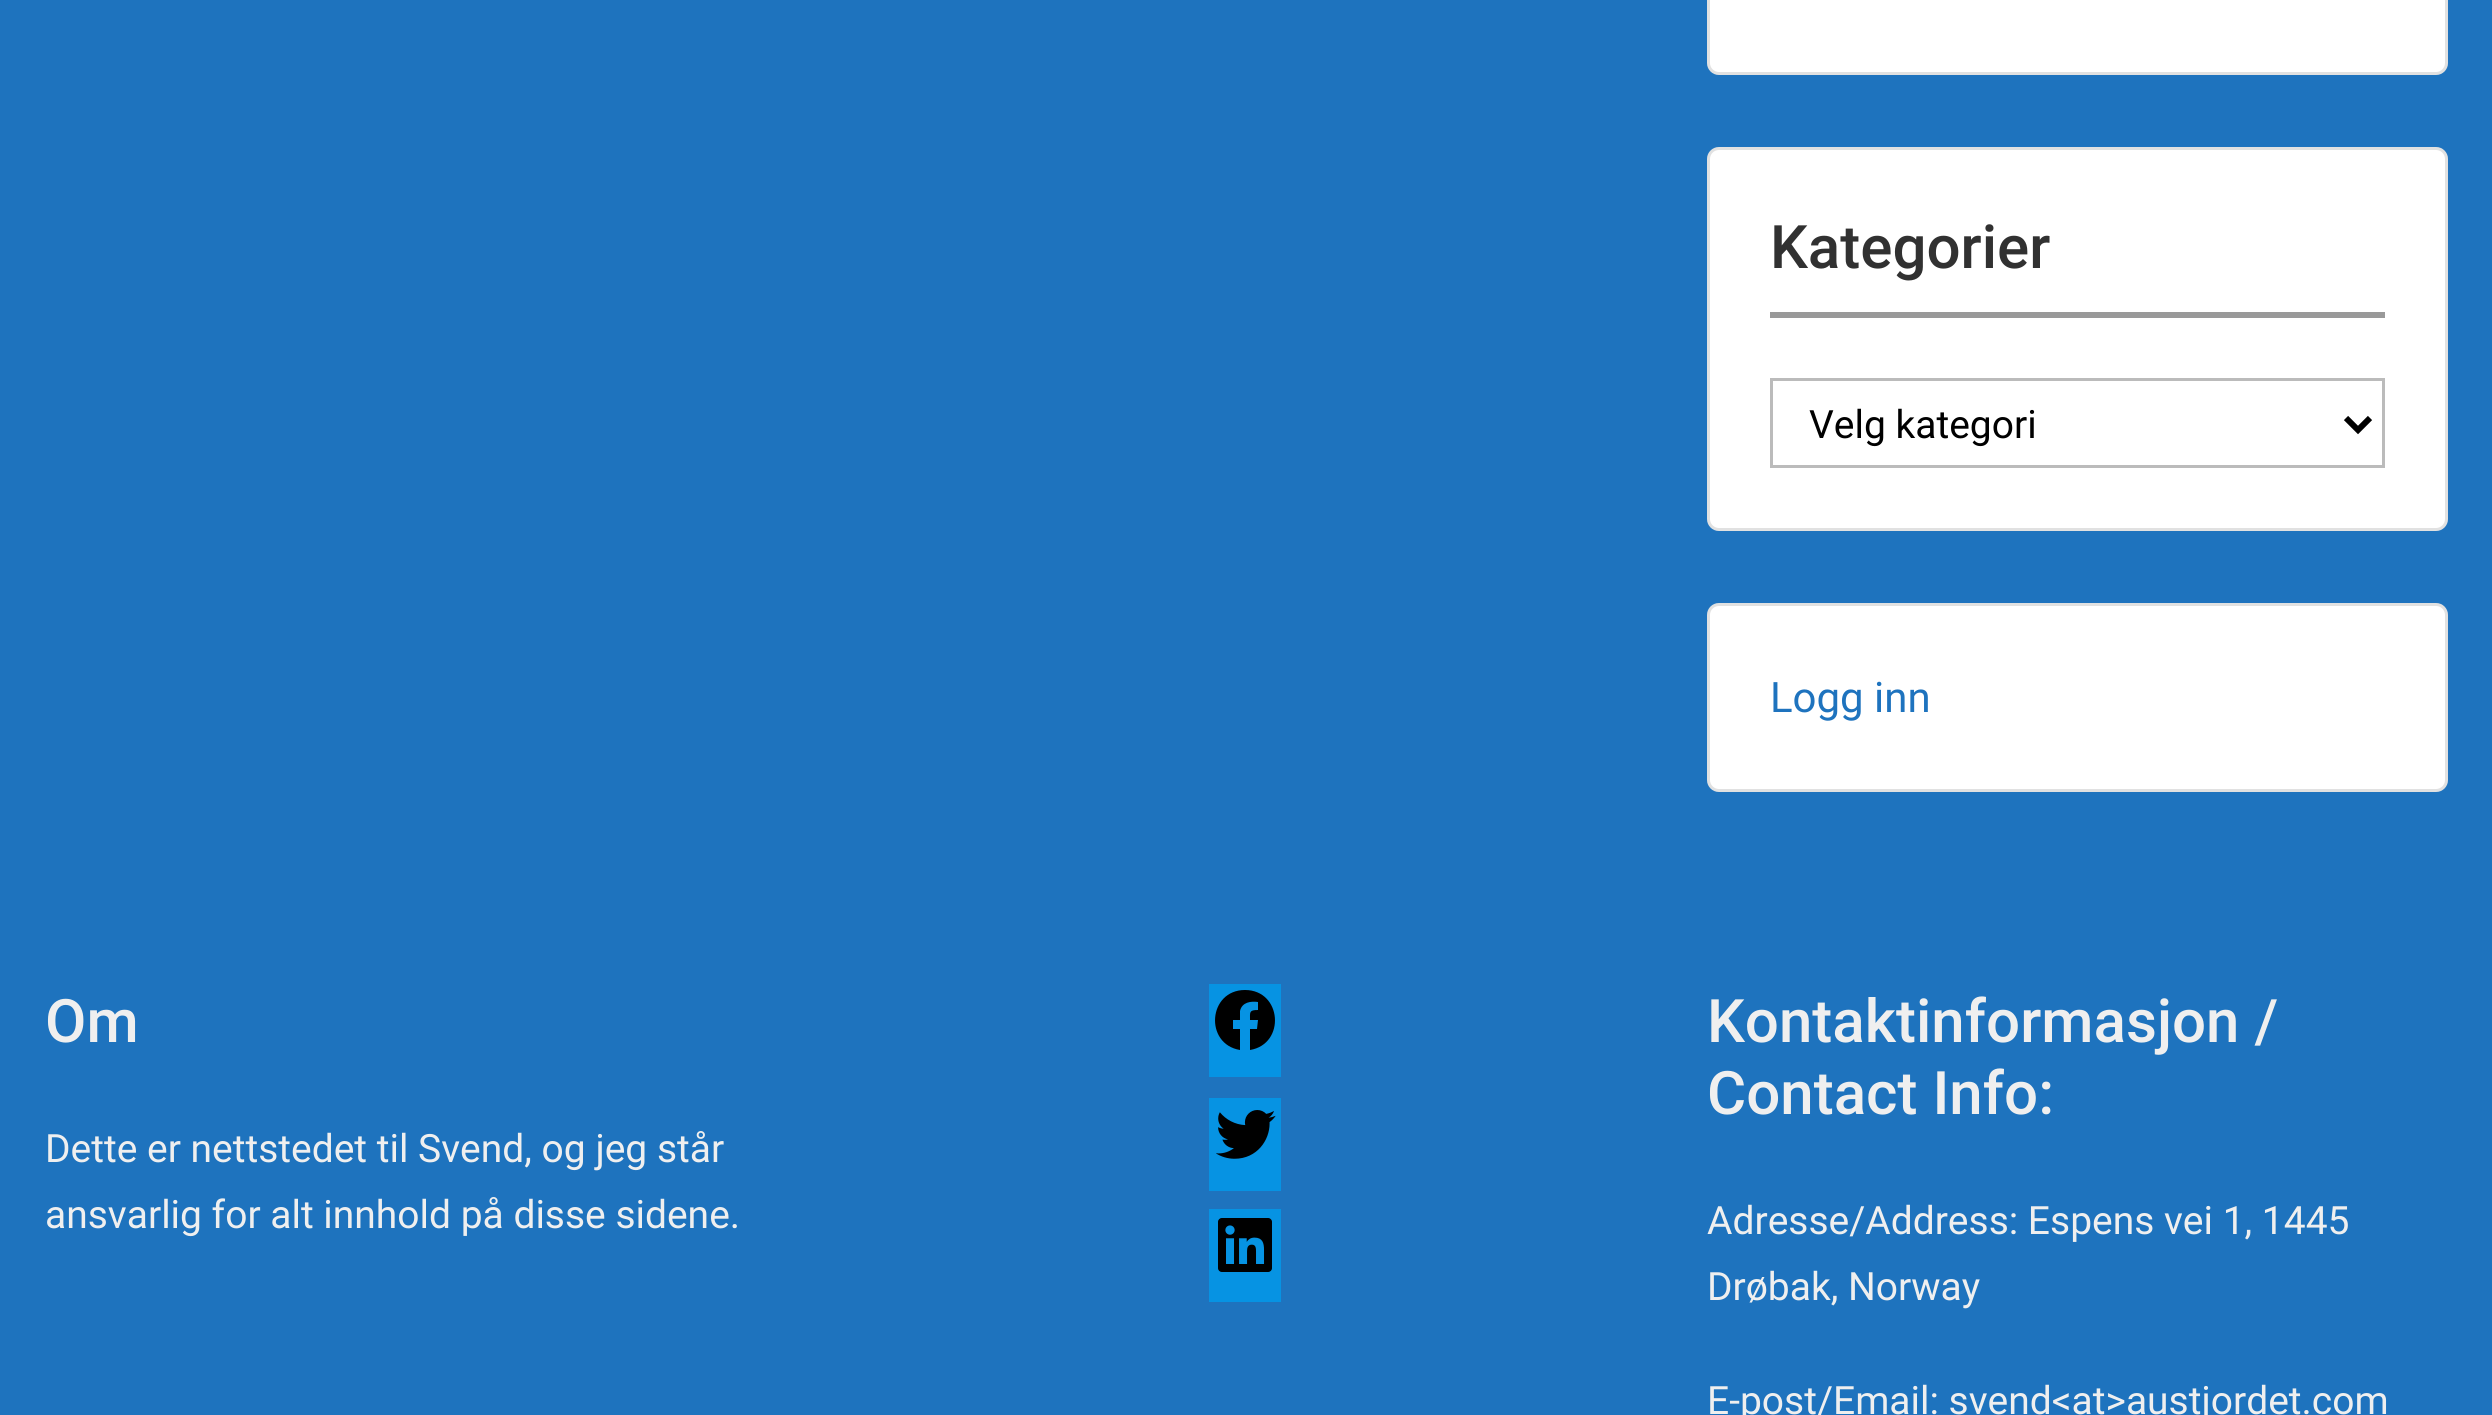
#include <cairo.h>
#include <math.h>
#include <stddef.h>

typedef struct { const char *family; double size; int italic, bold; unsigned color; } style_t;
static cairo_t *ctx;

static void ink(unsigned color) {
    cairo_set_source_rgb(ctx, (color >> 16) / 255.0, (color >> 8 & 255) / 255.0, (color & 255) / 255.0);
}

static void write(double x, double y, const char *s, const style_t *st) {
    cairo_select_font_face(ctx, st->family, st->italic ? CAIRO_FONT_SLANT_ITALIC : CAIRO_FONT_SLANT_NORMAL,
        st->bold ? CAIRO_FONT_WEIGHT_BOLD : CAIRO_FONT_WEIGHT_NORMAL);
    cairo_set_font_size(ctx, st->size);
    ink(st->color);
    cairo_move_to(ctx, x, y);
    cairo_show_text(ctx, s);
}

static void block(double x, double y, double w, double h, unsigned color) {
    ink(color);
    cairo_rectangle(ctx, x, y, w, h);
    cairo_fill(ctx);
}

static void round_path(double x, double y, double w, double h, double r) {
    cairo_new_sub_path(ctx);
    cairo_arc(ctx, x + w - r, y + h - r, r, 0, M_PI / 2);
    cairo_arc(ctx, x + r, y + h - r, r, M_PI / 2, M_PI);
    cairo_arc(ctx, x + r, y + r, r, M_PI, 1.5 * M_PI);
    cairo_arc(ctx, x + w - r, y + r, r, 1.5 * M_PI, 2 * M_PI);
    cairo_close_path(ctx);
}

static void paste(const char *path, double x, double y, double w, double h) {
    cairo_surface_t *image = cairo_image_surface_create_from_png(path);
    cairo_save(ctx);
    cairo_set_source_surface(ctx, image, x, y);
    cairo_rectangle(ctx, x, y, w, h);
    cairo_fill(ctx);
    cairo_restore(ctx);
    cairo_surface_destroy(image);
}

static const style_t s1 = {"Roboto Medium", 60, 0, 0, 0x313131};
static const style_t s2 = {"Roboto", 39, 0, 0, 0x000000};
static const style_t s3 = {"Roboto", 42, 0, 0, 0x1e73be};
static const style_t s4 = {"Roboto Medium", 60, 0, 0, 0xefefef};
static const style_t s5 = {"Roboto", 39, 0, 0, 0xefefef};

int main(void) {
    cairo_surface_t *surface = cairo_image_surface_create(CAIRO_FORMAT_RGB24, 2492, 1415);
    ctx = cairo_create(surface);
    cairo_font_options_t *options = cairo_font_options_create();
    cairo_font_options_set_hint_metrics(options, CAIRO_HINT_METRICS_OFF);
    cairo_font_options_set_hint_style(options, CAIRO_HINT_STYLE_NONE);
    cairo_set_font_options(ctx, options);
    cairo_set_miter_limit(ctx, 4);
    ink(0x1e73be);
    cairo_paint(ctx);
    ink(0xffffff);
    round_path(1707, -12, 741, 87, 12);
    cairo_fill(ctx);
    round_path(1708.5, -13.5, 738, 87, 10.5);
    cairo_set_source_rgba(ctx, 0, 0, 0, 0.12);
    cairo_set_line_width(ctx, 3);
    cairo_stroke(ctx);
    ink(0xffffff);
    round_path(1707, 147, 741, 384, 12);
    cairo_fill(ctx);
    round_path(1708.5, 148.5, 738, 381, 10.5);
    cairo_set_source_rgba(ctx, 0, 0, 0, 0.12);
    cairo_stroke(ctx);
    block(1770, 312, 615, 6, 0x999999);
    write(1770, 268, "Kategorier", &s1);
    cairo_rectangle(ctx, 1771.5, 379.5, 612, 87);
    ink(0xbbbbbb);
    cairo_stroke(ctx);
    cairo_new_path(ctx);
    cairo_move_to(ctx, 2346, 418);
    cairo_line_to(ctx, 2358, 430);
    cairo_line_to(ctx, 2370, 418);
    ink(0x000000);
    cairo_set_line_width(ctx, 6);
    cairo_stroke(ctx);
    write(1809, 438, "Velg kategori", &s2);
    ink(0xffffff);
    round_path(1707, 603, 741, 189, 12);
    cairo_fill(ctx);
    round_path(1708.5, 604.5, 738, 186, 10.5);
    cairo_set_source_rgba(ctx, 0, 0, 0, 0.12);
    cairo_set_line_width(ctx, 3);
    cairo_stroke(ctx);
    write(1770, 712, "Logg inn", &s3);
    write(45, 1042, "Om", &s4);
    write(45, 1162, "Dette er nettstedet til Svend, og jeg står", &s5);
    write(45, 1228, "ansvarlig for alt innhold på disse sidene.", &s5);
    block(1209, 984, 72, 93, 0x0693e3);
    ink(0x000000);
    cairo_new_path(ctx);
    cairo_move_to(ctx, 1245, 990);
    cairo_curve_to(ctx, 1208, 990, 1204, 1044, 1240, 1050);
    cairo_line_to(ctx, 1240, 1029);
    cairo_line_to(ctx, 1233, 1029);
    cairo_line_to(ctx, 1233, 1020);
    cairo_line_to(ctx, 1240, 1020);
    cairo_line_to(ctx, 1240, 1011);
    cairo_curve_to(ctx, 1242, 1002, 1251, 1001, 1258, 1002);
    cairo_line_to(ctx, 1258, 1010);
    cairo_curve_to(ctx, 1249, 1010, 1250, 1012, 1250, 1020);
    cairo_line_to(ctx, 1258, 1020);
    cairo_line_to(ctx, 1257, 1029);
    cairo_line_to(ctx, 1250, 1029);
    cairo_line_to(ctx, 1250, 1050);
    cairo_curve_to(ctx, 1286, 1044, 1282, 990, 1245, 990);
    cairo_close_path(ctx);
    cairo_fill(ctx);
    block(1209, 1098, 72, 93, 0x0693e3);
    paste("pic1.png", 1216, 1110, 60, 49);
    block(1209, 1209, 72, 93, 0x0693e3);
    paste("pic2.png", 1218, 1218, 54, 54);
    write(1707, 1042, "Kontaktinformasjon /", &s4);
    write(1707, 1114, "Contact Info:", &s4);
    write(1707, 1234, "Adresse/Address: Espens vei 1, 1445", &s5);
    write(1707, 1300, "Drøbak, Norway", &s5);
    write(1707, 1414, "E-post/Email: svend<at>austjordet.com", &s5);
    cairo_surface_write_to_png(surface, "screenshot.png");
    cairo_font_options_destroy(options);
    cairo_destroy(ctx);
    cairo_surface_destroy(surface);
    return 0;
}
